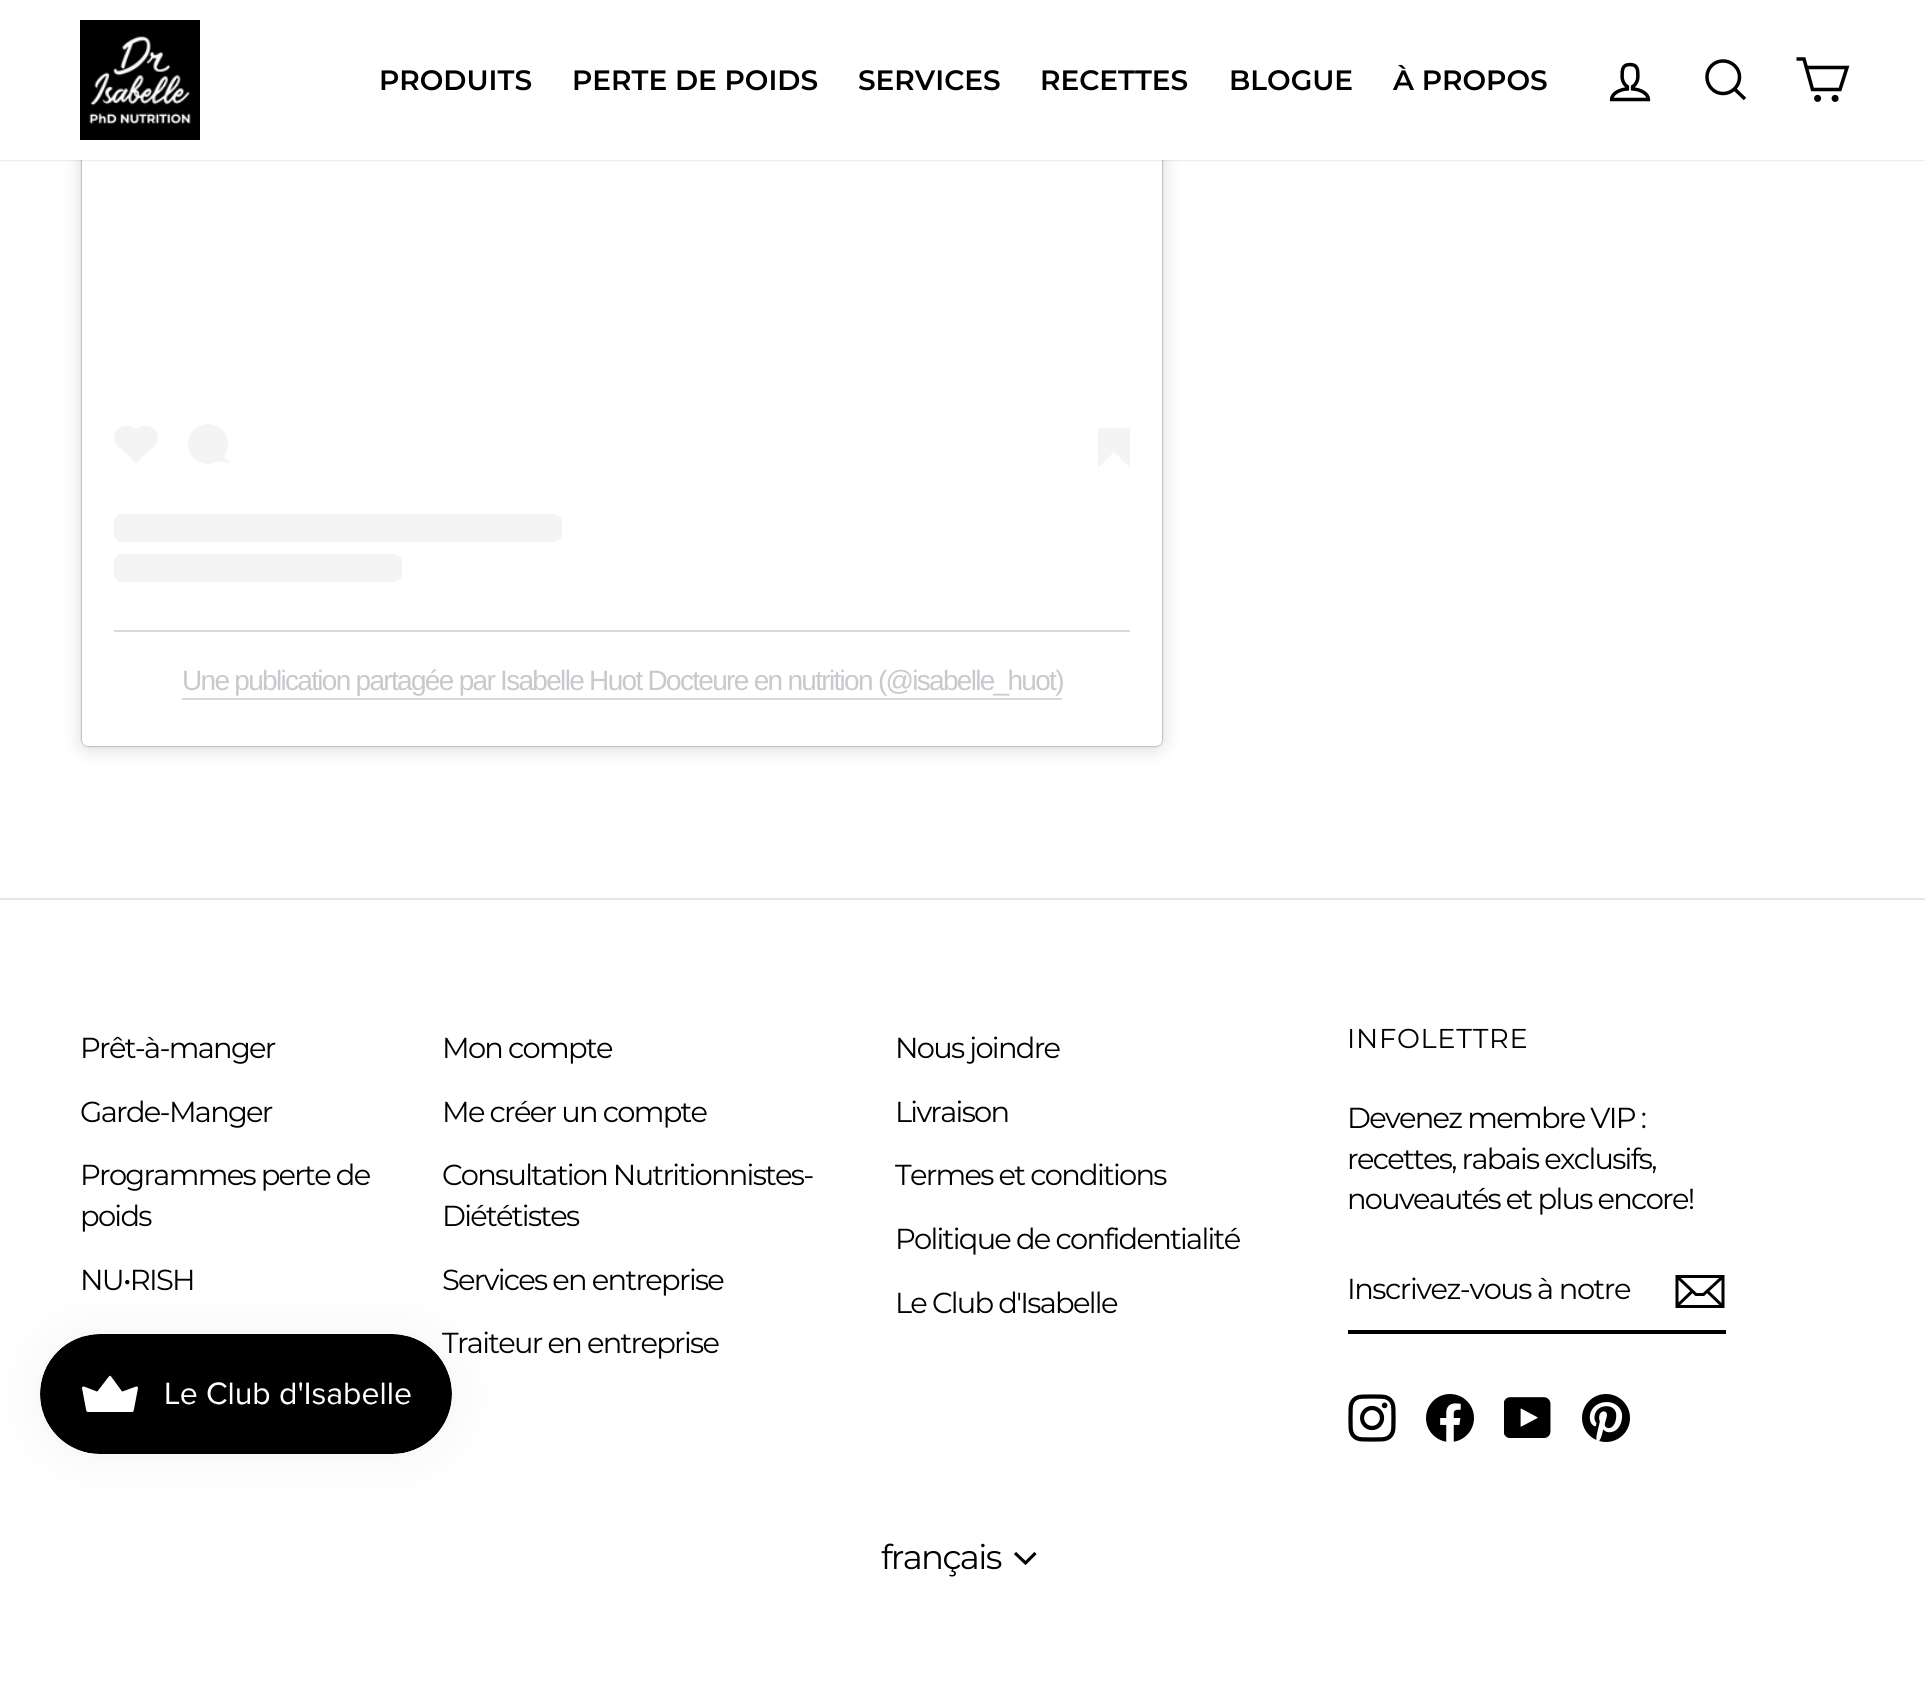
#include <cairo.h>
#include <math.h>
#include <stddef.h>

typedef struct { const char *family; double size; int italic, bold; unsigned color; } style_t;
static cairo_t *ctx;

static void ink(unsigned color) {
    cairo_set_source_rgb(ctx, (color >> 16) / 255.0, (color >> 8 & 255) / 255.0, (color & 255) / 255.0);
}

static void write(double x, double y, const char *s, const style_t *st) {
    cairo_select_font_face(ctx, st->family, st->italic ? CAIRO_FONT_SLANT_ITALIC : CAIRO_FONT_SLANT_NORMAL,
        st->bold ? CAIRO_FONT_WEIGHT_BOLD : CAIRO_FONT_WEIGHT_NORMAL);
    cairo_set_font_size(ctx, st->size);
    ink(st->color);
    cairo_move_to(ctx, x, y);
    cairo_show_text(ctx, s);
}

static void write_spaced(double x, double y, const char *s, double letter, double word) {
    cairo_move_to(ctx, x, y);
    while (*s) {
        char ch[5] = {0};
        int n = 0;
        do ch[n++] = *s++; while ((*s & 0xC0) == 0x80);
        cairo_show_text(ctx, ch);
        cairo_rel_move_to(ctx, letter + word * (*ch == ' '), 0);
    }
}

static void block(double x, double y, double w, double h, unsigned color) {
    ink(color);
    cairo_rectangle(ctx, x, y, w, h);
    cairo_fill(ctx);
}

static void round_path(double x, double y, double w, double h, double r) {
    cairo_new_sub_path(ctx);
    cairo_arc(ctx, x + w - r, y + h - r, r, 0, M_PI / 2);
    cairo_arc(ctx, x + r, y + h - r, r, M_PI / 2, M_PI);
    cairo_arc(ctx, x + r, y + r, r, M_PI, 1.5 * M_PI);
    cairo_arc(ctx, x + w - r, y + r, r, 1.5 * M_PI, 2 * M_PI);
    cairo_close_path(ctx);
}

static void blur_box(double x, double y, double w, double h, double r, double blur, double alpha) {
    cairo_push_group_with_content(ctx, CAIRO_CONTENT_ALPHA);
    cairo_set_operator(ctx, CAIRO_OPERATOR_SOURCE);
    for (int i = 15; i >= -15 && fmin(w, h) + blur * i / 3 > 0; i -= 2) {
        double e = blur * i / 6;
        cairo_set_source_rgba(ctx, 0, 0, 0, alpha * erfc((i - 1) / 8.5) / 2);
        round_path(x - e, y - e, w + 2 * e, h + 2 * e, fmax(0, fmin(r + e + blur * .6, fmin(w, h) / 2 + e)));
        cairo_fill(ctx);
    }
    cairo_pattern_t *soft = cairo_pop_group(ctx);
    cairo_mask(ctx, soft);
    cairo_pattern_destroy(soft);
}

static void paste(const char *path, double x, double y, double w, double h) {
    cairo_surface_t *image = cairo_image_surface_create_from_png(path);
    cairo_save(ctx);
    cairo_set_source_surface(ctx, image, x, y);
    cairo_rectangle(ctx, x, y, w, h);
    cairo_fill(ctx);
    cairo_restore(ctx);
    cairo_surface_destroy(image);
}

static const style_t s1 = {"Montserrat SemiBold", 28, 0, 0, 0x000000};

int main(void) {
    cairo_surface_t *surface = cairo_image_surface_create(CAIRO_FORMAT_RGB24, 1925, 1703);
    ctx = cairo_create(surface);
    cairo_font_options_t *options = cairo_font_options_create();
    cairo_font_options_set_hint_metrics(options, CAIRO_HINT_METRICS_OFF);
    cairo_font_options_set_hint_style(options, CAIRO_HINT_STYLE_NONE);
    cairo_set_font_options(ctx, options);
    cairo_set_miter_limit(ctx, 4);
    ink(0xffffff);
    cairo_paint(ctx);
    ink(0x000000);
    blur_box(82, -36, 1080, 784, 6, 10, 0.15);
    blur_box(82, -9, 1080, 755, 6, 1, 0.5);
    ink(0xffffff);
    round_path(82, -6, 1080, 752, 6);
    cairo_fill(ctx);
    ink(0x000000);
    blur_box(0, 0, 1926, 160, 0, 1, 0.2);
    block(0, 0, 1925, 160, 0xffffff);
    paste("pic1.png", 80, 20, 120, 120);
    write(379, 90, "PRODUITS", &s1);
    write(572, 90, "PERTE DE POIDS", &s1);
    write(858, 90, "SERVICES", &s1);
    write(1040, 90, "RECETTES", &s1);
    write(1229, 90, "BLOGUE", &s1);
    write(1393, 90, "À PROPOS", &s1);
    paste("pic2.png", 1609, 62, 42, 40);
    cairo_new_path(ctx);
    cairo_move_to(ctx, 1739.5, 77);
    cairo_curve_to(ctx, 1739.5, 86, 1732, 93.5, 1723, 93.5);
    cairo_curve_to(ctx, 1714, 93.5, 1707, 86, 1707, 77);
    cairo_curve_to(ctx, 1707, 68, 1714, 61, 1723, 61);
    cairo_curve_to(ctx, 1732, 61, 1739.5, 68, 1739.5, 77);
    cairo_close_path(ctx);
    cairo_move_to(ctx, 1745, 99);
    cairo_line_to(ctx, 1734.5, 89);
    cairo_set_line_width(ctx, 3.5);
    cairo_stroke(ctx);
    cairo_new_path(ctx);
    cairo_move_to(ctx, 1806, 67.5);
    cairo_line_to(ctx, 1847, 67.5);
    cairo_line_to(ctx, 1840, 89.5);
    cairo_line_to(ctx, 1812.5, 89.5);
    cairo_line_to(ctx, 1804, 59);
    cairo_line_to(ctx, 1796.5, 59);
    cairo_stroke(ctx);
    cairo_arc(ctx, 1817.6, 98.4, 1.8, 0, 2 * M_PI);
    cairo_stroke(ctx);
    cairo_arc(ctx, 1835.1, 98.4, 1.8, 0, 2 * M_PI);
    cairo_stroke(ctx);
    block(114, 630, 1016, 2, 0xd9d9d9);
    ink(0xf4f4f4);
    round_path(114, 426, 26, 24, 12);
    cairo_fill(ctx);
    cairo_new_path(ctx);
    cairo_move_to(ctx, 118.5, 445.5);
    cairo_line_to(ctx, 136, 428);
    cairo_line_to(ctx, 154, 445.5);
    cairo_line_to(ctx, 136, 463.5);
    cairo_close_path(ctx);
    cairo_fill(ctx);
    round_path(132, 426, 26, 24, 12);
    cairo_fill(ctx);
    cairo_arc(ctx, 208, 444, 20, 0, 2 * M_PI);
    cairo_fill(ctx);
    cairo_new_path(ctx);
    cairo_move_to(ctx, 218, 461);
    cairo_line_to(ctx, 222, 454);
    cairo_line_to(ctx, 230, 463.5);
    cairo_close_path(ctx);
    cairo_fill(ctx);
    block(1098, 428, 32, 24, 0xf4f4f4);
    cairo_new_path(ctx);
    cairo_move_to(ctx, 1098, 452);
    cairo_line_to(ctx, 1114, 452);
    cairo_line_to(ctx, 1098, 468);
    cairo_close_path(ctx);
    cairo_fill(ctx);
    cairo_new_path(ctx);
    cairo_move_to(ctx, 1114, 452);
    cairo_line_to(ctx, 1130, 452);
    cairo_line_to(ctx, 1130, 468);
    cairo_close_path(ctx);
    cairo_fill(ctx);
    round_path(114, 514, 448, 28, 8);
    cairo_fill(ctx);
    round_path(114, 554, 288, 28, 8);
    cairo_fill(ctx);
    block(182, 698, 880, 2, 0xd9d9d9);
    cairo_select_font_face(ctx, "Liberation Sans", CAIRO_FONT_SLANT_NORMAL, CAIRO_FONT_WEIGHT_NORMAL);
    ink(0xc9c8cd);
    write_spaced(182, 690, "Une publication partagée par Isabelle Huot Docteure en nutrition (@isabelle_huot)", -1.7, 0);
    block(0, 898, 1925, 2, 0xe8e8e1);
    cairo_select_font_face(ctx, "Montserrat", CAIRO_FONT_SLANT_NORMAL, CAIRO_FONT_WEIGHT_NORMAL);
    cairo_set_font_size(ctx, 28.9);
    ink(0x000000);
    write_spaced(80, 1058, "Prêt-à-manger", -1.7, 0);
    write_spaced(80, 1122, "Garde-Manger", -1.7, 0);
    write_spaced(80, 1185, "Programmes perte de", -1.7, 0);
    write_spaced(80, 1226, "poids", -1.7, 0);
    write_spaced(80, 1290, "NU•RISH", -1.7, 0);
    write_spaced(442, 1058, "Mon compte", -1.7, 0);
    write_spaced(442, 1122, "Me créer un compte", -1.7, 0);
    write_spaced(442, 1185, "Consultation Nutritionnistes-", -1.7, 0);
    write_spaced(442, 1226, "Diététistes", -1.7, 0);
    write_spaced(442, 1290, "Services en entreprise", -1.7, 0);
    write_spaced(442, 1353, "Traiteur en entreprise", -1.7, 0);
    write_spaced(895, 1058, "Nous joindre", -1.7, 0);
    write_spaced(895, 1122, "Livraison", -1.7, 0);
    write_spaced(895, 1185, "Termes et conditions", -1.7, 0);
    write_spaced(895, 1249, "Politique de confidentialité", -1.7, 0);
    write_spaced(895, 1313, "Le Club d'Isabelle", -1.7, 0);
    cairo_set_font_size(ctx, 27.25);
    write_spaced(1347, 1048, "INFOLETTRE", 0.75, 0);
    cairo_set_font_size(ctx, 28.9);
    write_spaced(1347, 1128, "Devenez membre VIP :", -1.7, 0);
    write_spaced(1347, 1169, "recettes, rabais exclusifs,", -1.7, 0);
    write_spaced(1347, 1209, "nouveautés et plus encore!", -1.7, 0);
    block(1348, 1330, 378, 4, 0x000000);
    write_spaced(1347, 1299, "Inscrivez-vous à notre", -1.45, 0);
    cairo_new_path(ctx);
    cairo_move_to(ctx, 1723, 1306.5);
    cairo_line_to(ctx, 1677, 1306.5);
    cairo_line_to(ctx, 1677, 1276.5);
    cairo_line_to(ctx, 1723, 1276.5);
    cairo_close_path(ctx);
    cairo_move_to(ctx, 1677, 1276.5);
    cairo_line_to(ctx, 1696, 1294.5);
    cairo_line_to(ctx, 1703.5, 1294.5);
    cairo_line_to(ctx, 1723, 1276.5);
    cairo_move_to(ctx, 1692.5, 1291);
    cairo_line_to(ctx, 1677, 1306);
    cairo_move_to(ctx, 1723, 1306.5);
    cairo_line_to(ctx, 1707, 1291);
    cairo_set_line_width(ctx, 3);
    cairo_stroke(ctx);
    paste("pic3.png", 1348, 1394, 48, 48);
    paste("pic4.png", 1426, 1394, 48, 48);
    paste("pic5.png", 1504, 1397, 47, 41);
    paste("pic6.png", 1582, 1394, 48, 48);
    cairo_set_font_size(ctx, 34);
    write_spaced(881, 1569, "français", -1.7, 0);
    cairo_new_path(ctx);
    cairo_move_to(ctx, 1015, 1553);
    cairo_line_to(ctx, 1025.5, 1563);
    cairo_line_to(ctx, 1035.5, 1553);
    cairo_set_line_width(ctx, 3.1);
    cairo_stroke(ctx);
    ink(0x000000);
    blur_box(40, 1334, 412, 120, 60, 25, 0.05);
    paste("pic7.png", 40, 1334, 412, 120);
    cairo_surface_write_to_png(surface, "screenshot.png");
    cairo_font_options_destroy(options);
    cairo_destroy(ctx);
    cairo_surface_destroy(surface);
    return 0;
}
